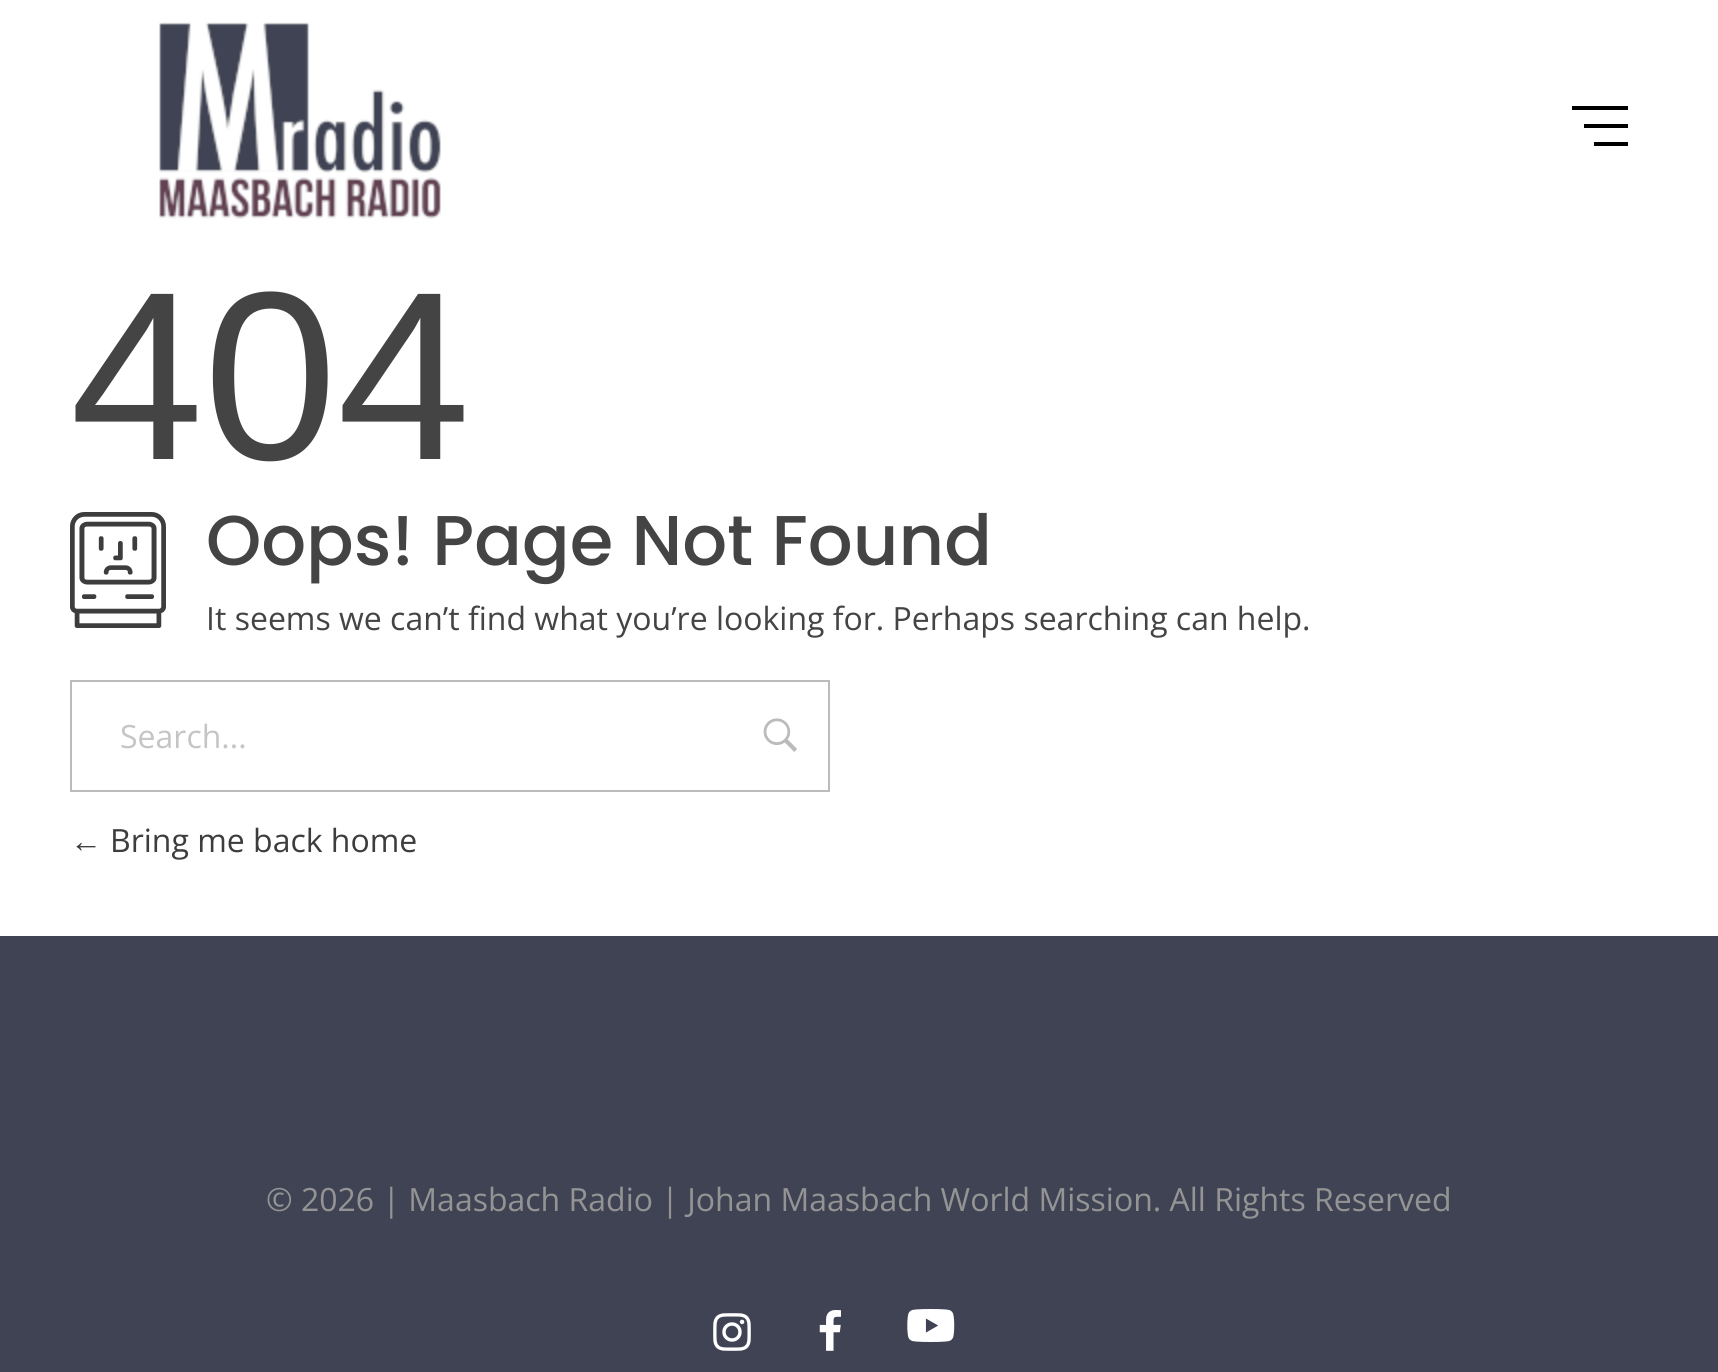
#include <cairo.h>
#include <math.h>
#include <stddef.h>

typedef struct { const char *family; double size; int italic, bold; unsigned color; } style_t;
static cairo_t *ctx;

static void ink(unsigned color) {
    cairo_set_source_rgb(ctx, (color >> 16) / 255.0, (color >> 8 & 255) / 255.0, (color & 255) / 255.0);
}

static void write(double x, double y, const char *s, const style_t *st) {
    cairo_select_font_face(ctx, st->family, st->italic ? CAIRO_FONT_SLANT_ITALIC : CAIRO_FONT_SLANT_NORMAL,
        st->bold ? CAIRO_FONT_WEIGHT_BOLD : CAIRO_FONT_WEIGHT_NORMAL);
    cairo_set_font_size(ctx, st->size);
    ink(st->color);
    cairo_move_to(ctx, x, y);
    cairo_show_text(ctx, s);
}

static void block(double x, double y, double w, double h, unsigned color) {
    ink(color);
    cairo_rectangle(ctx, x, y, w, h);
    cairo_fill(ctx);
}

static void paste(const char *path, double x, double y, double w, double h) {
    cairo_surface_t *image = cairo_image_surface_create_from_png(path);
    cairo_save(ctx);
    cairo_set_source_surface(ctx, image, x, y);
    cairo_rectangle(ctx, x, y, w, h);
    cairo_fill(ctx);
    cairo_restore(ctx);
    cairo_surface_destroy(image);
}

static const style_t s1 = {"Liberation Sans", 240, 0, 0, 0x444444};
static const style_t s2 = {"Poppins Medium", 70.4, 0, 0, 0x444444};
static const style_t s3 = {"Open Sans", 32, 0, 0, 0x444444};
static const style_t s4 = {"Open Sans", 32, 0, 0, 0xc5c5c5};
static const style_t s5 = {"Liberation Sans", 32, 0, 0, 0x3d3d3d};
static const style_t s6 = {"Open Sans", 32, 0, 0, 0x3d3d3d};
static const style_t s7 = {"Open Sans", 32, 0, 0, 0x949494};

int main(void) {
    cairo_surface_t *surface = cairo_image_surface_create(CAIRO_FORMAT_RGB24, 1718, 1372);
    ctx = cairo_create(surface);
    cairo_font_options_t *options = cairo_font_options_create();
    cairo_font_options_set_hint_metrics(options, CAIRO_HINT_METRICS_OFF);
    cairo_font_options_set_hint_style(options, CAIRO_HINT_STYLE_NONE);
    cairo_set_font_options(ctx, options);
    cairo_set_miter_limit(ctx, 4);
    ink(0xffffff);
    cairo_paint(ctx);
    paste("pic1.png", 159, 22, 282, 197);
    block(1572, 106, 56, 4, 0x000000);
    block(1584, 124, 44, 4, 0x000000);
    block(1594, 142, 34, 4, 0x000000);
    write(70, 459, "404", &s1);
    paste("pic2.png", 70, 512, 96, 116);
    write(206, 565, "Oops! Page Not Found", &s2);
    write(206, 630, "It seems we can’t find what you’re looking for. Perhaps searching can help.", &s3);
    cairo_rectangle(ctx, 71, 681, 758, 110);
    ink(0xbbbbbb);
    cairo_stroke(ctx);
    write(120, 748, "Search...", &s4);
    paste("pic3.png", 763, 718, 34, 34);
    write(70, 852, "←", &s5);
    write(110, 852, "Bring me back home", &s6);
    block(0, 936, 1718, 436, 0x404354);
    write(266, 1211, "© 2026 | Maasbach Radio | Johan Maasbach World Mission. All Rights Reserved", &s7);
    paste("pic4.png", 713, 1313, 38, 38);
    paste("pic5.png", 819, 1310, 22, 41);
    paste("pic6.png", 907, 1309, 48, 33);
    cairo_surface_write_to_png(surface, "screenshot.png");
    cairo_font_options_destroy(options);
    cairo_destroy(ctx);
    cairo_surface_destroy(surface);
    return 0;
}
